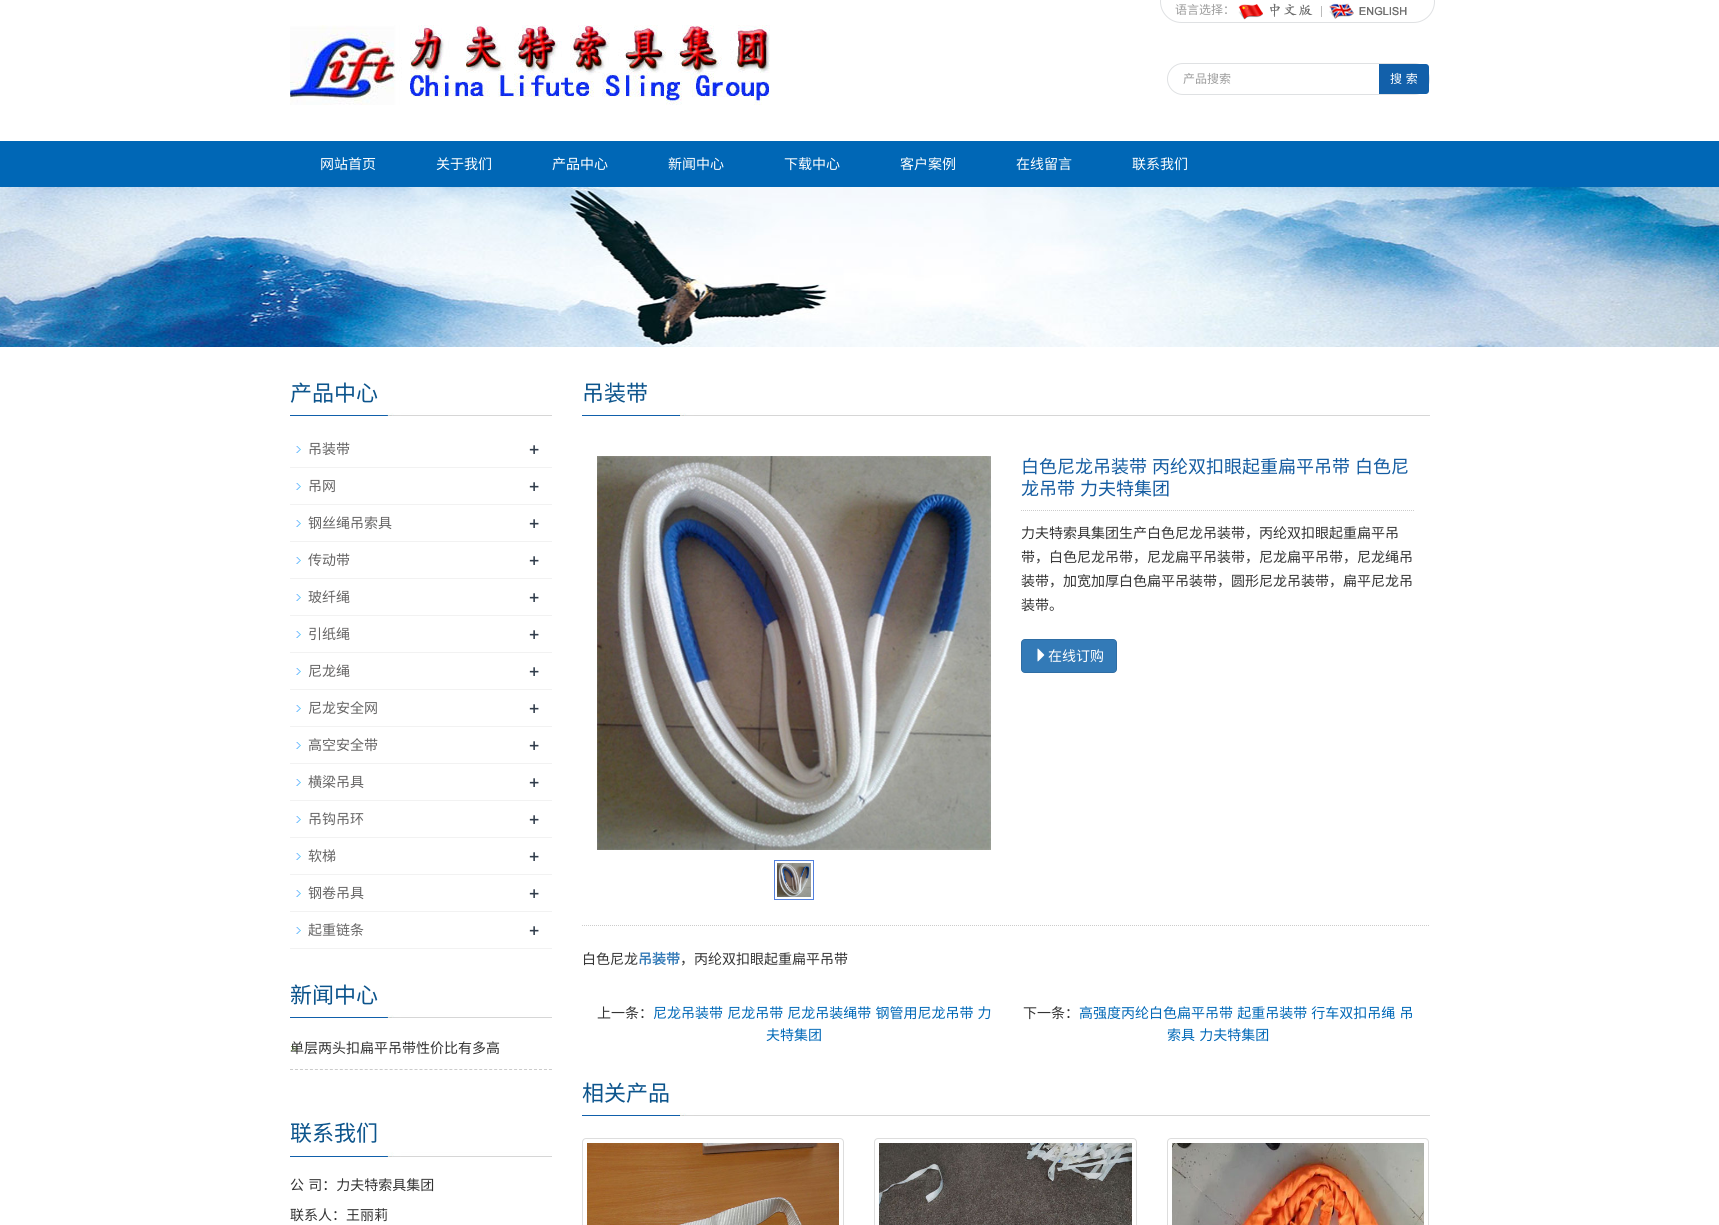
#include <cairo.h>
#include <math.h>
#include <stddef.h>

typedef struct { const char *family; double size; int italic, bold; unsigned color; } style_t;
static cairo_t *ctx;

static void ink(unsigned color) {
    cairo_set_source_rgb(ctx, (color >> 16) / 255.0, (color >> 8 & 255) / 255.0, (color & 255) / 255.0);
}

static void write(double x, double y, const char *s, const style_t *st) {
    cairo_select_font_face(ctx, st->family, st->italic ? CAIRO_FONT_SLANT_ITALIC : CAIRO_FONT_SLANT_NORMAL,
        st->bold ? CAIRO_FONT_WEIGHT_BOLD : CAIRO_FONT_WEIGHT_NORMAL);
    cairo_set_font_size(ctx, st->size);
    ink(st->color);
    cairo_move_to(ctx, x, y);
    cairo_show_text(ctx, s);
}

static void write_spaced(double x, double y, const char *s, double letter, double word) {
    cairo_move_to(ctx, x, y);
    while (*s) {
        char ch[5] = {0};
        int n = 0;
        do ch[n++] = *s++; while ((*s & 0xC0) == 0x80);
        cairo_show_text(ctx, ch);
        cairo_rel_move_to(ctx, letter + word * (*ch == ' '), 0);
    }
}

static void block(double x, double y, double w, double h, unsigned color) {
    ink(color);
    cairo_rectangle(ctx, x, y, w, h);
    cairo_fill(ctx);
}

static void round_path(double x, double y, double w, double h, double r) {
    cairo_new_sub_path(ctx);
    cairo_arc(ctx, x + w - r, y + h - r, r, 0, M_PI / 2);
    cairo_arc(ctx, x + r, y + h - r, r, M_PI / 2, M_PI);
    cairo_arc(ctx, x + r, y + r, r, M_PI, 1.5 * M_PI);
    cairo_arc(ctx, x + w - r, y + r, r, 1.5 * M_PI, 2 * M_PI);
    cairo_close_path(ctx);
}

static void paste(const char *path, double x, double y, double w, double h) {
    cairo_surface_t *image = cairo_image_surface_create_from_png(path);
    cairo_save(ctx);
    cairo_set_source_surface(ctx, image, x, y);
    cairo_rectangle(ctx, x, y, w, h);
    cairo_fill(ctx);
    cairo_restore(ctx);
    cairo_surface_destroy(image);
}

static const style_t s1 = {"Noto Sans CJK SC", 12, 0, 0, 0x9c9c9c};
static const style_t s2 = {"Noto Sans CJK SC", 14, 0, 0, 0xffffff};
static const style_t s3 = {"Noto Sans CJK SC", 22, 0, 0, 0x0c548c};
static const style_t s4 = {"Noto Sans CJK SC", 14, 0, 0, 0x656464};
static const style_t s5 = {"Open Sans SemiBold", 18, 0, 0, 0x303c4b};
static const style_t s6 = {"Noto Sans CJK SC", 14, 0, 0, 0x333333};
static const style_t s7 = {"Noto Sans CJK SC", 14, 0, 1, 0x337ab7};
static const style_t s8 = {"Noto Sans CJK SC", 14, 0, 0, 0x0068b7};

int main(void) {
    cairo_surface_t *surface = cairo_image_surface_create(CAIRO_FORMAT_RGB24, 1719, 1225);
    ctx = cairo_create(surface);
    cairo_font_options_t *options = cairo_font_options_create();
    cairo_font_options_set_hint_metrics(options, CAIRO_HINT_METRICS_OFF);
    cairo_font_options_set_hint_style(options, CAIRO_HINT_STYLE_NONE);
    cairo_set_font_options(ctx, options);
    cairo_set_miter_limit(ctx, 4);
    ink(0xffffff);
    cairo_paint(ctx);
    round_path(1160.5, -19.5, 274, 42, 21);
    ink(0xdfe1e3);
    cairo_set_line_width(ctx, 1);
    cairo_stroke(ctx);
    write(1175, 14, "语言选择：", &s1);
    paste("pic1.png", 1238, 3, 75, 17);
    block(1321, 6, 1, 11, 0xbbbbbb);
    paste("pic2.png", 1329, 3, 78, 16);
    paste("pic3.png", 290, 25, 480, 80);
    round_path(1167.5, 63.5, 262, 31, 15.5);
    ink(0xdfe1e3);
    cairo_stroke(ctx);
    write(1183, 83, "产品搜索", &s1);
    ink(0x1260aa);
    cairo_new_path(ctx);
    cairo_move_to(ctx, 1379, 64);
    cairo_line_to(ctx, 1426, 64);
    cairo_curve_to(ctx, 1427.5, 64, 1429, 65.5, 1429, 67);
    cairo_line_to(ctx, 1429, 91);
    cairo_curve_to(ctx, 1429, 92.5, 1427.5, 94, 1426, 94);
    cairo_line_to(ctx, 1379, 94);
    cairo_close_path(ctx);
    cairo_fill(ctx);
    ink(0xffffff);
    write_spaced(1390, 83, "搜 索", 0, 1);
    block(0, 141, 1719, 46, 0x0067b6);
    write(320, 169, "网站首页", &s2);
    write(436, 169, "关于我们", &s2);
    write(552, 169, "产品中心", &s2);
    write(668, 169, "新闻中心", &s2);
    write(784, 169, "下载中心", &s2);
    write(900, 169, "客户案例", &s2);
    write(1016, 169, "在线留言", &s2);
    write(1132, 169, "联系我们", &s2);
    paste("pic4.png", 0, 187, 1719, 160);
    paste("pic5.png", 290, 413, 262, 3);
    write(290, 401, "产品中心", &s3);
    paste("pic6.png", 296, 446, 5, 7);
    block(290, 467, 262, 1, 0xf2f2f2);
    write(308, 454, "吊装带", &s4);
    write(529, 456, "+", &s5);
    paste("pic6.png", 296, 483, 5, 7);
    block(290, 504, 262, 1, 0xf2f2f2);
    write(308, 491, "吊网", &s4);
    write(529, 493, "+", &s5);
    paste("pic6.png", 296, 520, 5, 7);
    block(290, 541, 262, 1, 0xf2f2f2);
    write(308, 528, "钢丝绳吊索具", &s4);
    write(529, 530, "+", &s5);
    paste("pic6.png", 296, 557, 5, 7);
    block(290, 578, 262, 1, 0xf2f2f2);
    write(308, 565, "传动带", &s4);
    write(529, 567, "+", &s5);
    paste("pic6.png", 296, 594, 5, 7);
    block(290, 615, 262, 1, 0xf2f2f2);
    write(308, 602, "玻纤绳", &s4);
    write(529, 604, "+", &s5);
    paste("pic6.png", 296, 631, 5, 7);
    block(290, 652, 262, 1, 0xf2f2f2);
    write(308, 639, "引纸绳", &s4);
    write(529, 641, "+", &s5);
    paste("pic6.png", 296, 668, 5, 7);
    block(290, 689, 262, 1, 0xf2f2f2);
    write(308, 676, "尼龙绳", &s4);
    write(529, 678, "+", &s5);
    paste("pic6.png", 296, 705, 5, 7);
    block(290, 726, 262, 1, 0xf2f2f2);
    write(308, 713, "尼龙安全网", &s4);
    write(529, 715, "+", &s5);
    paste("pic6.png", 296, 742, 5, 7);
    block(290, 763, 262, 1, 0xf2f2f2);
    write(308, 750, "高空安全带", &s4);
    write(529, 752, "+", &s5);
    paste("pic6.png", 296, 779, 5, 7);
    block(290, 800, 262, 1, 0xf2f2f2);
    write(308, 787, "横梁吊具", &s4);
    write(529, 789, "+", &s5);
    paste("pic6.png", 296, 816, 5, 7);
    block(290, 837, 262, 1, 0xf2f2f2);
    write(308, 824, "吊钩吊环", &s4);
    write(529, 826, "+", &s5);
    paste("pic6.png", 296, 853, 5, 7);
    block(290, 874, 262, 1, 0xf2f2f2);
    write(308, 861, "软梯", &s4);
    write(529, 863, "+", &s5);
    paste("pic6.png", 296, 890, 5, 7);
    block(290, 911, 262, 1, 0xf2f2f2);
    write(308, 898, "钢卷吊具", &s4);
    write(529, 900, "+", &s5);
    paste("pic6.png", 296, 927, 5, 7);
    block(290, 948, 262, 1, 0xf2f2f2);
    write(308, 935, "起重链条", &s4);
    write(529, 937, "+", &s5);
    paste("pic5.png", 290, 1015, 262, 3);
    write(290, 1003, "新闻中心", &s3);
    paste("pic7.png", 291, 1046, 7, 5);
    cairo_new_path(ctx);
    cairo_move_to(ctx, 290, 1069.5);
    cairo_line_to(ctx, 552, 1069.5);
    ink(0xcccccc);
    cairo_set_dash(ctx, (double[]){3, 1.98}, 2, 0);
    cairo_stroke(ctx);
    write(290, 1053, "单层两头扣扁平吊带性价比有多高", &s6);
    paste("pic8.png", 290, 1152, 262, 2);
    paste("pic5.png", 290, 1154, 262, 3);
    write(290, 1141, "联系我们", &s3);
    cairo_set_font_size(ctx, 14);
    ink(0x333333);
    write_spaced(290, 1190, "公 司：力夫特索具集团", 0, 1);
    write(290, 1220, "联系人：王丽莉", &s6);
    paste("pic9.png", 582, 413, 848, 3);
    write(582, 401, "吊装带", &s3);
    paste("pic10.png", 597, 456, 394, 394);
    cairo_rectangle(ctx, 774.5, 860.5, 39, 39);
    ink(0x5280dd);
    cairo_set_dash(ctx, NULL, 0, 0);
    cairo_stroke(ctx);
    paste("pic11.png", 777, 863, 34, 34);
    cairo_new_path(ctx);
    cairo_move_to(ctx, 1021, 510.5);
    cairo_line_to(ctx, 1415, 510.5);
    ink(0xcccccc);
    cairo_set_dash(ctx, (double[]){1, 1}, 2, 0);
    cairo_stroke(ctx);
    cairo_set_font_size(ctx, 18);
    ink(0x145ca1);
    write_spaced(1021, 473, "白色尼龙吊装带 丙纶双扣眼起重扁平吊带 白色尼", 0, 1);
    write_spaced(1021, 495, "龙吊带 力夫特集团", 0, 1);
    write(1021, 538, "力夫特索具集团生产白色尼龙吊装带，丙纶双扣眼起重扁平吊", &s6);
    write(1021, 562, "带，白色尼龙吊带，尼龙扁平吊装带，尼龙扁平吊带，尼龙绳吊", &s6);
    write(1021, 586, "装带，加宽加厚白色扁平吊装带，圆形尼龙吊装带，扁平尼龙吊", &s6);
    write(1021, 610, "装带。", &s6);
    ink(0x337ab7);
    round_path(1021.5, 639.5, 95, 33, 3.5);
    cairo_fill_preserve(ctx);
    ink(0x2e6da4);
    cairo_set_dash(ctx, NULL, 0, 0);
    cairo_stroke(ctx);
    paste("pic12.png", 1037, 648, 8, 14);
    write(1048, 661, "在线订购", &s2);
    cairo_new_path(ctx);
    cairo_move_to(ctx, 582, 925.5);
    cairo_line_to(ctx, 1430, 925.5);
    ink(0xcccccc);
    cairo_set_dash(ctx, (double[]){1, 1}, 2, 0);
    cairo_stroke(ctx);
    write(582, 964, "白色尼龙", &s6);
    write(638, 964, "吊装带", &s7);
    write(680, 964, "，丙纶双扣眼起重扁平吊带", &s6);
    write(597, 1018, "上一条：", &s6);
    ink(0x0068b7);
    write_spaced(653, 1018, "尼龙吊装带 尼龙吊带 尼龙吊装绳带 钢管用尼龙吊带 力", 0, 1);
    write(766, 1040, "夫特集团", &s8);
    write(1023, 1018, "下一条：", &s6);
    ink(0x0068b7);
    write_spaced(1079, 1018, "高强度丙纶白色扁平吊带 起重吊装带 行车双扣吊绳 吊", 0, 1);
    write_spaced(1167, 1040, "索具 力夫特集团", 0, 1);
    paste("pic9.png", 582, 1113, 848, 3);
    write(582, 1101, "相关产品", &s3);
    round_path(582.5, 1138.5, 261, 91, 3.5);
    ink(0xdddddd);
    cairo_set_dash(ctx, NULL, 0, 0);
    cairo_stroke(ctx);
    paste("pic13.png", 587, 1143, 252, 82);
    round_path(874.5, 1138.5, 262, 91, 3.5);
    cairo_stroke(ctx);
    paste("pic14.png", 879, 1143, 253, 82);
    round_path(1167.5, 1138.5, 261, 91, 3.5);
    cairo_stroke(ctx);
    paste("pic15.png", 1172, 1143, 252, 82);
    cairo_surface_write_to_png(surface, "screenshot.png");
    cairo_font_options_destroy(options);
    cairo_destroy(ctx);
    cairo_surface_destroy(surface);
    return 0;
}
